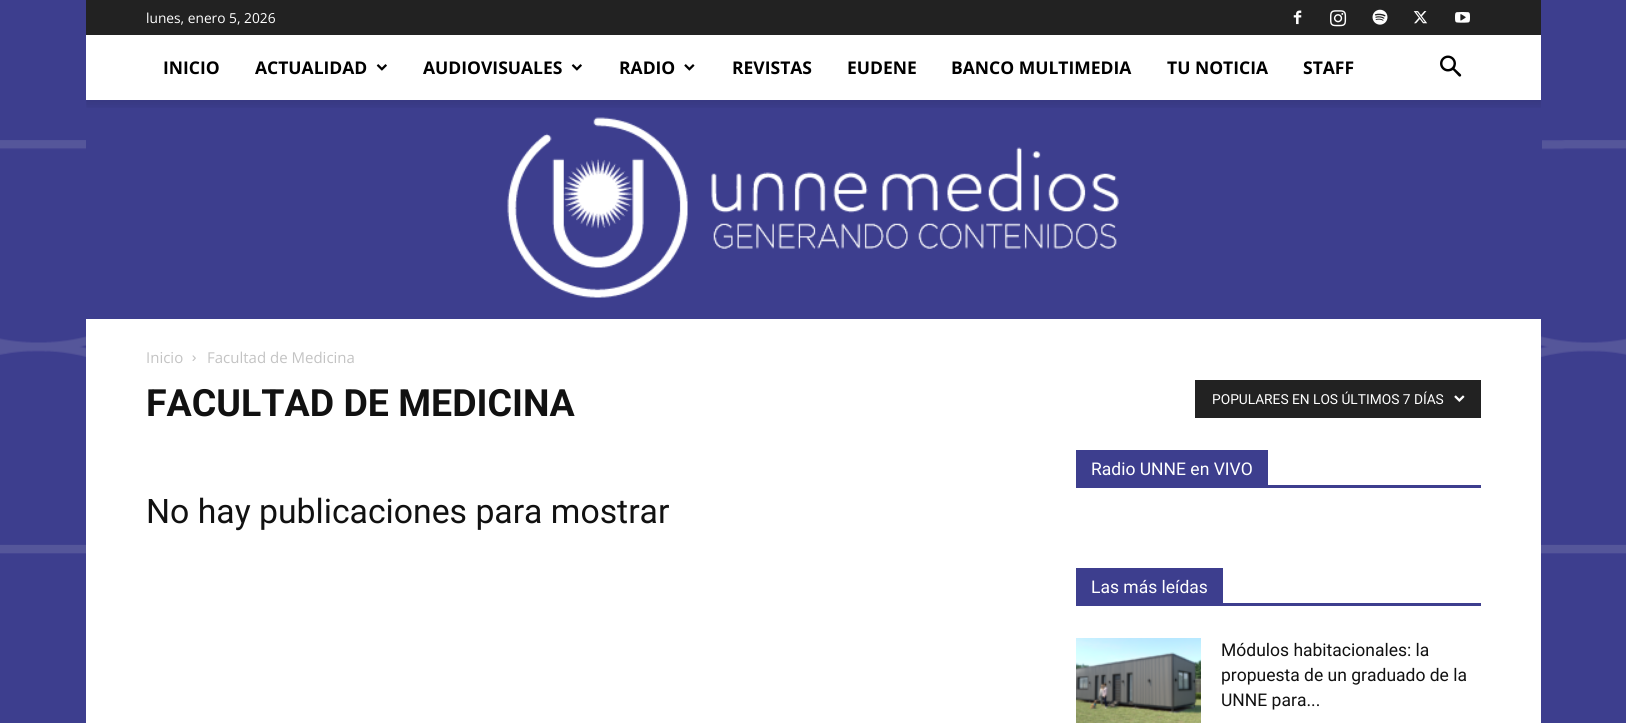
#include <cairo.h>
#include <math.h>
#include <stddef.h>

typedef struct { const char *family; double size; int italic, bold; unsigned color; } style_t;
static cairo_t *ctx;

static void ink(unsigned color) {
    cairo_set_source_rgb(ctx, (color >> 16) / 255.0, (color >> 8 & 255) / 255.0, (color & 255) / 255.0);
}

static void write(double x, double y, const char *s, const style_t *st) {
    cairo_select_font_face(ctx, st->family, st->italic ? CAIRO_FONT_SLANT_ITALIC : CAIRO_FONT_SLANT_NORMAL,
        st->bold ? CAIRO_FONT_WEIGHT_BOLD : CAIRO_FONT_WEIGHT_NORMAL);
    cairo_set_font_size(ctx, st->size);
    ink(st->color);
    cairo_move_to(ctx, x, y);
    cairo_show_text(ctx, s);
}

static void block(double x, double y, double w, double h, unsigned color) {
    ink(color);
    cairo_rectangle(ctx, x, y, w, h);
    cairo_fill(ctx);
}

static void paste(const char *path, double x, double y, double w, double h) {
    cairo_surface_t *image = cairo_image_surface_create_from_png(path);
    cairo_save(ctx);
    cairo_set_source_surface(ctx, image, x, y);
    cairo_rectangle(ctx, x, y, w, h);
    cairo_fill(ctx);
    cairo_restore(ctx);
    cairo_surface_destroy(image);
}

static const style_t s1 = {"Open Sans", 13.75, 0, 0, 0xffffff};
static const style_t s2 = {"Open Sans", 17.5, 0, 1, 0x000000};
static const style_t s3 = {"Open Sans", 15, 0, 0, 0xc3c3c3};
static const style_t s4 = {"Roboto", 37.5, 0, 1, 0x111111};
static const style_t s5 = {"Roboto", 13.75, 0, 0, 0xffffff};
static const style_t s6 = {"Roboto", 33.75, 0, 0, 0x111111};
static const style_t s7 = {"Roboto", 17.5, 0, 0, 0xffffff};
static const style_t s8 = {"Roboto", 17.5, 0, 0, 0x111111};

int main(void) {
    cairo_surface_t *surface = cairo_image_surface_create(CAIRO_FORMAT_RGB24, 1626, 723);
    ctx = cairo_create(surface);
    cairo_font_options_t *options = cairo_font_options_create();
    cairo_font_options_set_hint_metrics(options, CAIRO_HINT_METRICS_OFF);
    cairo_font_options_set_hint_style(options, CAIRO_HINT_STYLE_NONE);
    cairo_set_font_options(ctx, options);
    cairo_set_miter_limit(ctx, 4);
    ink(0xffffff);
    cairo_paint(ctx);
    paste("pic1.png", 0, 0, 1626, 723);
    block(86, 0, 1456, 319, 0x3d3e8e);
    block(86, 0, 1455, 35, 0x222222);
    write(146, 23, "lunes, enero 5, 2026", &s1);
    paste("pic2.png", 1293, 10, 9, 15);
    paste("pic3.png", 1330, 10, 17, 17);
    paste("pic4.png", 1372, 9, 16, 16);
    paste("pic5.png", 1413, 11, 15, 13);
    paste("pic6.png", 1455, 12, 15, 11);
    block(86, 35, 1455, 65, 0xffffff);
    write(163, 74, "INICIO", &s2);
    write(255, 74, "ACTUALIDAD", &s2);
    paste("pic7.png", 376, 64, 11, 7);
    write(423, 74, "AUDIOVISUALES", &s2);
    paste("pic7.png", 571, 64, 11, 7);
    write(619, 74, "RADIO", &s2);
    paste("pic8.png", 684, 64, 11, 7);
    write(732, 74, "REVISTAS", &s2);
    write(847, 74, "EUDENE", &s2);
    write(951, 74, "BANCO MULTIMEDIA", &s2);
    write(1167, 74, "TU NOTICIA", &s2);
    write(1303, 74, "STAFF", &s2);
    paste("pic9.png", 1440, 55, 22, 22);
    paste("pic10.png", 86, 100, 1455, 8);
    paste("pic11.png", 507, 117, 612, 181);
    block(86, 319, 1455, 404, 0xffffff);
    write(146, 363, "Inicio", &s3);
    paste("pic12.png", 192, 355, 4, 6);
    write(207, 363, "Facultad de Medicina", &s3);
    write(146, 416, "FACULTAD DE MEDICINA", &s4);
    block(1195, 380, 286, 38, 0x222222);
    write(1212, 404, "POPULARES EN LOS ÚLTIMOS 7 DÍAS", &s5);
    paste("pic13.png", 1454, 395, 11, 7);
    write(146, 523, "No hay publicaciones para mostrar", &s6);
    block(1076, 485, 405, 3, 0x3d3e8e);
    block(1076, 450, 192, 35, 0x3d3e8e);
    write(1091, 475, "Radio UNNE en VIVO", &s7);
    block(1076, 603, 405, 3, 0x3d3e8e);
    block(1076, 568, 147, 35, 0x3d3e8e);
    write(1091, 593, "Las más leídas", &s7);
    paste("pic14.png", 1076, 638, 125, 85);
    write(1221, 656, "Módulos habitacionales: la", &s8);
    write(1221, 681, "propuesta de un graduado de la", &s8);
    write(1221, 706, "UNNE para...", &s8);
    cairo_surface_write_to_png(surface, "screenshot.png");
    cairo_font_options_destroy(options);
    cairo_destroy(ctx);
    cairo_surface_destroy(surface);
    return 0;
}
